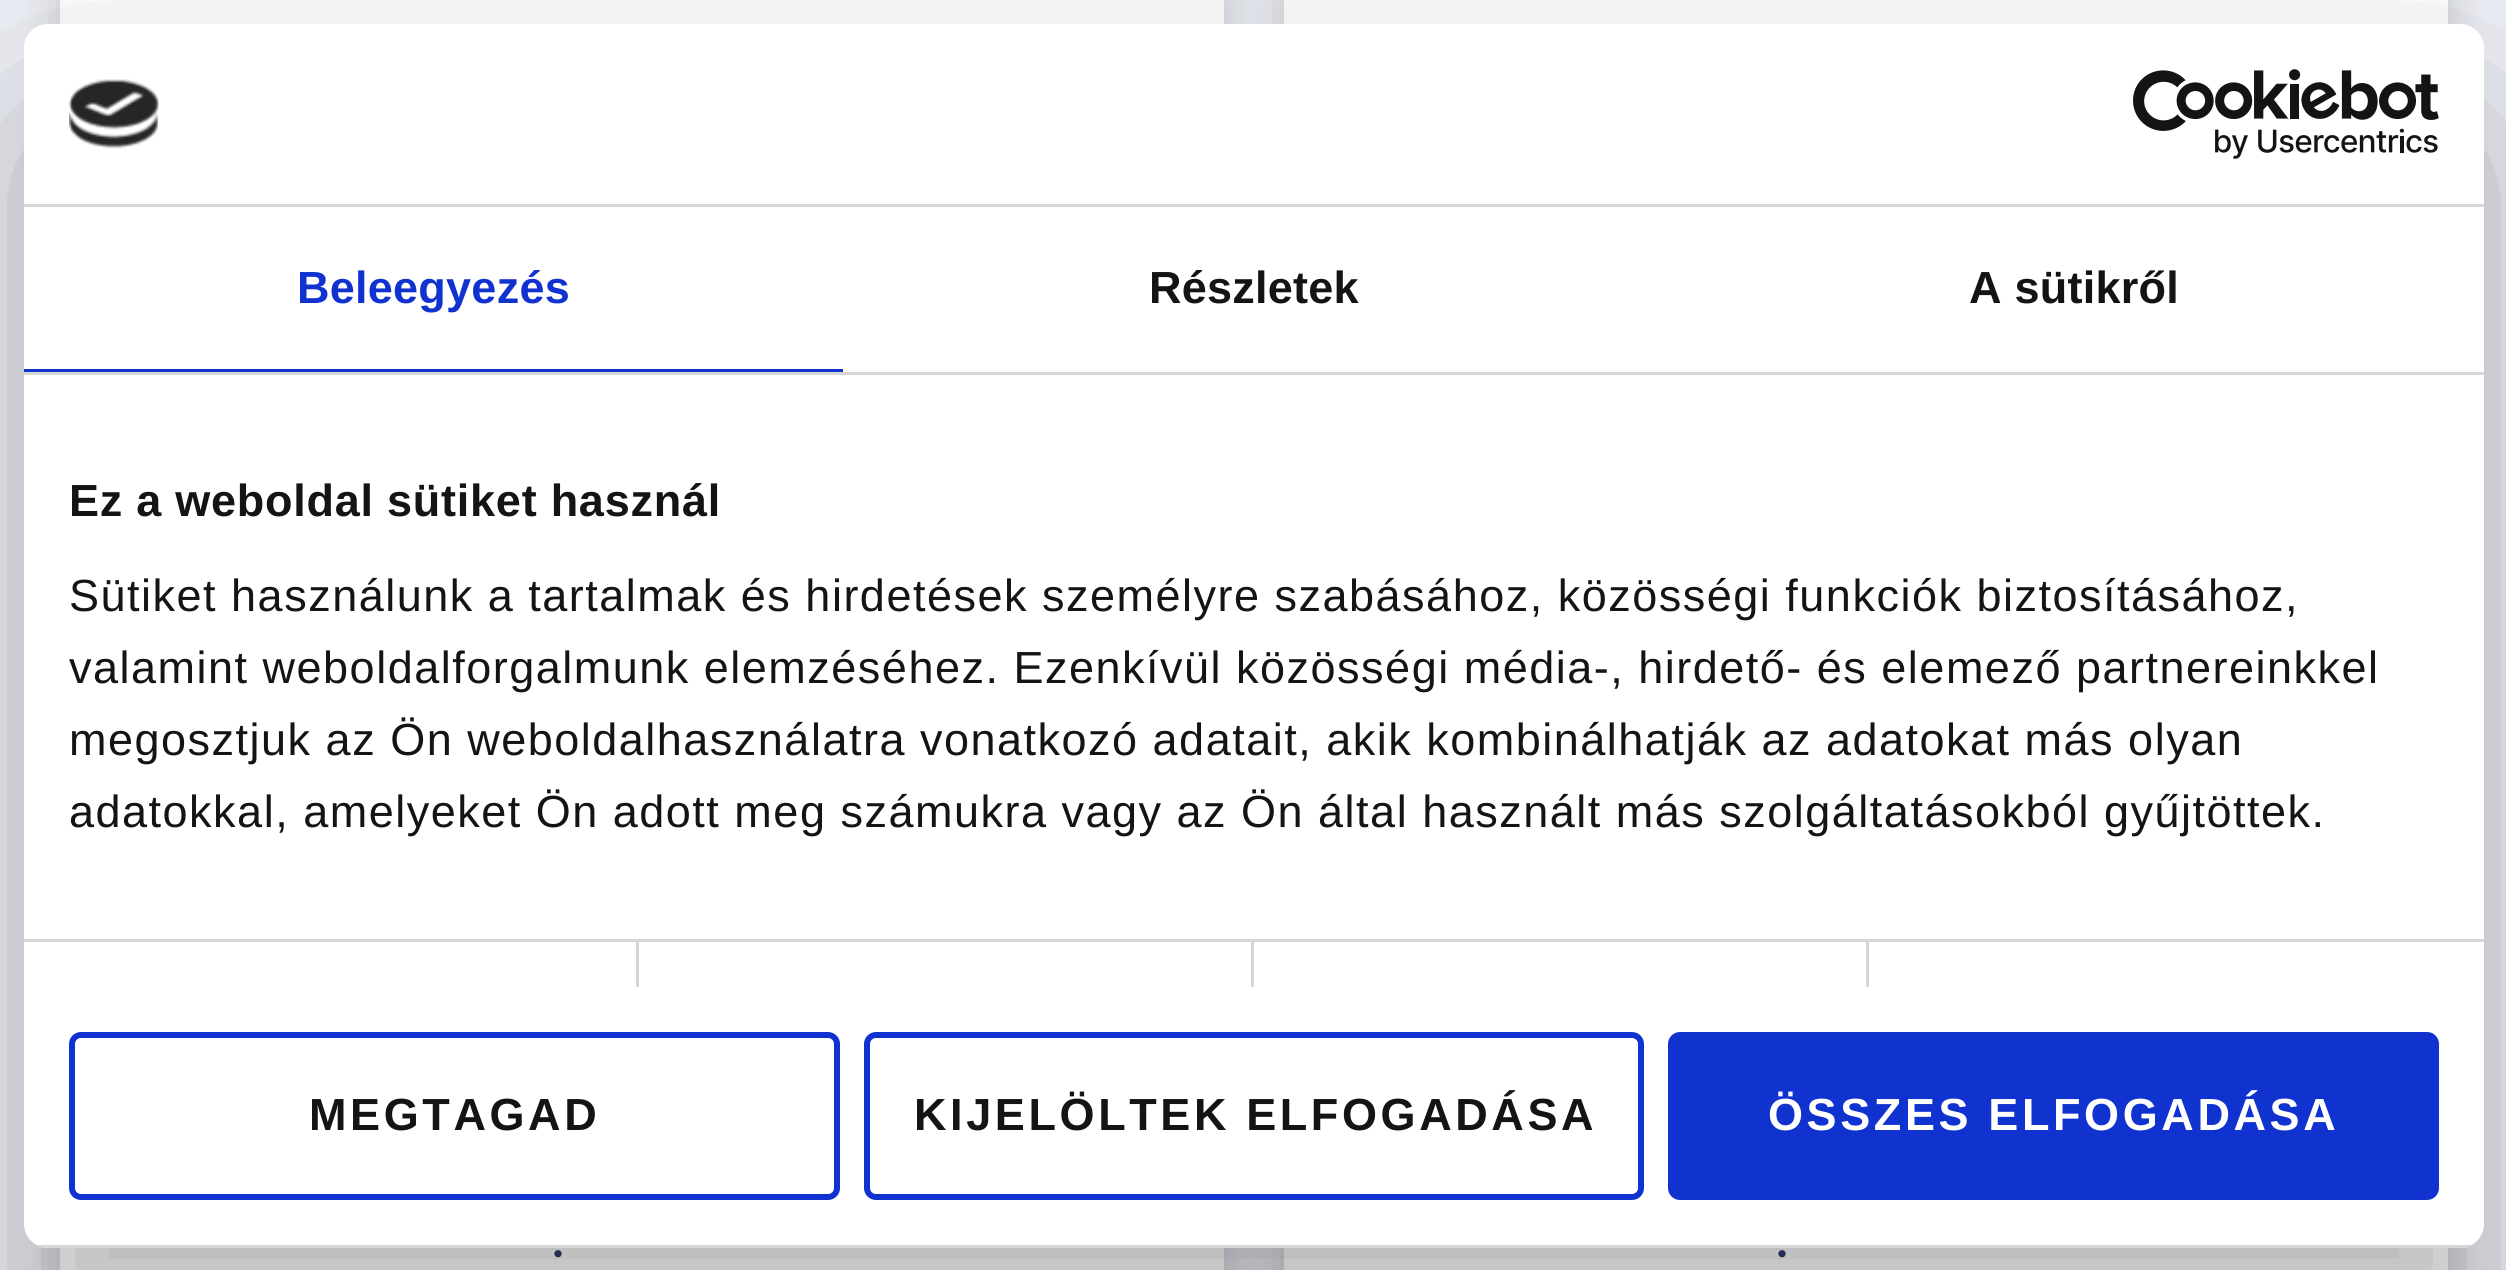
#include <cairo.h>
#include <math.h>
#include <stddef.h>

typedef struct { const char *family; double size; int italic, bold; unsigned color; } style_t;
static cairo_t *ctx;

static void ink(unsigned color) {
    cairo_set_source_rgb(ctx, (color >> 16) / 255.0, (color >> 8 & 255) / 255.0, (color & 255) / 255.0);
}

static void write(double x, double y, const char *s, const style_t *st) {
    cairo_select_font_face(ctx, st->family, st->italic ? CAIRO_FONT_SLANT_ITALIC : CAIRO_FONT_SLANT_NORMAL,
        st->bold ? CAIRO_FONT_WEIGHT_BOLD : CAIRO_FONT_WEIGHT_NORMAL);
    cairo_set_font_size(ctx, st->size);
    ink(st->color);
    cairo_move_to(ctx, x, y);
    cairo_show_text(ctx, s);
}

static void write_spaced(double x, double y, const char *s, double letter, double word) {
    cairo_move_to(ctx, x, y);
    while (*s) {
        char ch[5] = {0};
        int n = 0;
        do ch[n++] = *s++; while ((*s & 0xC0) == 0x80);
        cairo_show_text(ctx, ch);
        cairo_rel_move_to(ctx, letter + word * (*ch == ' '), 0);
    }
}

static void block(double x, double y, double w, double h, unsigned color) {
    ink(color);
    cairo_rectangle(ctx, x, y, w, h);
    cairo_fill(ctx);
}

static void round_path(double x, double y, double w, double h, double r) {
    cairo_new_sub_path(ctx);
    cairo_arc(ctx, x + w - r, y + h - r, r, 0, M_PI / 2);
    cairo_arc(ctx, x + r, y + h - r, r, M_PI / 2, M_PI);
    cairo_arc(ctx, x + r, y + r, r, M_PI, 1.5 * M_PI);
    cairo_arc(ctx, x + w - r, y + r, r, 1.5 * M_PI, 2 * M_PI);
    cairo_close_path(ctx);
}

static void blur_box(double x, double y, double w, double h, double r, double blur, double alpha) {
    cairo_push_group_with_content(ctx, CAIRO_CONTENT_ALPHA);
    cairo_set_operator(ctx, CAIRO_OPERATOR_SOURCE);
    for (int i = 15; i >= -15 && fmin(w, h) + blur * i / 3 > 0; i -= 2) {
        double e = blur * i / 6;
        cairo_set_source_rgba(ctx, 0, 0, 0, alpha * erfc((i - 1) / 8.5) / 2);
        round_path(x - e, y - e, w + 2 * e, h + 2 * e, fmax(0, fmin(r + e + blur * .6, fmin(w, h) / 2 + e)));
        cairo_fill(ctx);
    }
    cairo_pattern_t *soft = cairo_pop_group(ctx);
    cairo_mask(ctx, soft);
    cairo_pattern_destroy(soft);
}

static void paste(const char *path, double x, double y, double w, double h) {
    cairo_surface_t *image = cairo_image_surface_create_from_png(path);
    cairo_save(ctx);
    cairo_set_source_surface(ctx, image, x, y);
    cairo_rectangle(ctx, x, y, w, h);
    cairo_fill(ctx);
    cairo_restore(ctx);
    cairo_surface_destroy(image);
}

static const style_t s1 = {"Nunito Medium", 60, 0, 0, 0x242c58};

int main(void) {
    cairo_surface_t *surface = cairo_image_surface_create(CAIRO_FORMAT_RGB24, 2506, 1270);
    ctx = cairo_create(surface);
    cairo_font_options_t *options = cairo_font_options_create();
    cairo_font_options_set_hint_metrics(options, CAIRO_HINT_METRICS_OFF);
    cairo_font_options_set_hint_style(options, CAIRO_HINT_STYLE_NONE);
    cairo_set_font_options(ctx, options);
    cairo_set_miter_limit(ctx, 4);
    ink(0xeff1f8);
    cairo_paint(ctx);
    ink(0x000000);
    blur_box(60, -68, 1164, 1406, 0, 22.5, 0.16);
    block(60, 0, 1164, 1270, 0xffffff);
    ink(0x000000);
    blur_box(1284, -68, 1164, 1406, 0, 22.5, 0.16);
    block(1284, 0, 1164, 1270, 0xffffff);
    ink(0x000000);
    blur_box(24, 120, 2460, 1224, 24, 102, 0.3);
    ink(0xffffff);
    round_path(24, 24, 2460, 1224, 24);
    cairo_fill(ctx);
    block(24, 204, 2460, 3, 0xd6d6d6);
    paste("pic1.png", 69, 79, 90, 70);
    paste("pic2.png", 2133, 69, 306, 90);
    block(24, 372, 2460, 3, 0xd6d6d6);
    block(24, 369, 819, 3, 0x1032cf);
    cairo_select_font_face(ctx, "Liberation Sans", CAIRO_FONT_SLANT_NORMAL, CAIRO_FONT_WEIGHT_BOLD);
    cairo_set_font_size(ctx, 45);
    write_spaced(297, 303, "Beleegyezés", 0.25, 0);
    ink(0x141414);
    write_spaced(1149, 303, "Részletek", 0.25, 0);
    write_spaced(1969, 303, "A sütikről", 0.25, 0);
    block(24, 939, 2460, 3, 0xd6d6d6);
    ink(0x141414);
    write_spaced(69, 516, "Ez a weboldal sütiket használ", 0.75, 0);
    cairo_select_font_face(ctx, "Liberation Sans", CAIRO_FONT_SLANT_NORMAL, CAIRO_FONT_WEIGHT_NORMAL);
    write_spaced(69, 611, "Sütiket használunk a tartalmak és hirdetések személyre szabásához, közösségi funkciók biztosításához,", 1.5, 0);
    write_spaced(69, 683, "valamint weboldalforgalmunk elemzéséhez. Ezenkívül közösségi média-, hirdető- és elemező partnereinkkel", 1.5, 0);
    write_spaced(69, 755, "megosztjuk az Ön weboldalhasználatra vonatkozó adatait, akik kombinálhatják az adatokat más olyan", 1.5, 0);
    write_spaced(69, 827, "adatokkal, amelyeket Ön adott meg számukra vagy az Ön által használt más szolgáltatásokból gyűjtöttek.", 1.5, 0);
    block(636, 942, 3, 45, 0xd6d6d6);
    block(1251, 942, 3, 45, 0xd6d6d6);
    block(1866, 942, 3, 45, 0xd6d6d6);
    cairo_save(ctx);
    round_path(24, 24, 2460, 1224, 24);
    cairo_clip(ctx);
    block(36, 1245, 2436, 3, 0xd6d6d6);
    cairo_restore(ctx);
    round_path(72, 1035, 765, 162, 9);
    ink(0x1032cf);
    cairo_set_line_width(ctx, 6);
    cairo_stroke(ctx);
    cairo_select_font_face(ctx, "Liberation Sans", CAIRO_FONT_SLANT_NORMAL, CAIRO_FONT_WEIGHT_BOLD);
    ink(0x141414);
    write_spaced(309, 1130, "MEGTAGAD", 3.6, 0);
    round_path(867, 1035, 774, 162, 9);
    ink(0x1032cf);
    cairo_stroke(ctx);
    ink(0x141414);
    write_spaced(914, 1130, "KIJELÖLTEK ELFOGADÁSA", 3.6, 0);
    ink(0x1032cf);
    round_path(1671, 1035, 765, 162, 9);
    cairo_fill_preserve(ctx);
    cairo_stroke(ctx);
    ink(0xffffff);
    write_spaced(1768, 1130, "ÖSSZES ELFOGADÁSA", 3.6, 0);
    write(551, 1257, ".", &s1);
    write(1775, 1257, ".", &s1);
    cairo_surface_write_to_png(surface, "screenshot.png");
    cairo_font_options_destroy(options);
    cairo_destroy(ctx);
    cairo_surface_destroy(surface);
    return 0;
}
